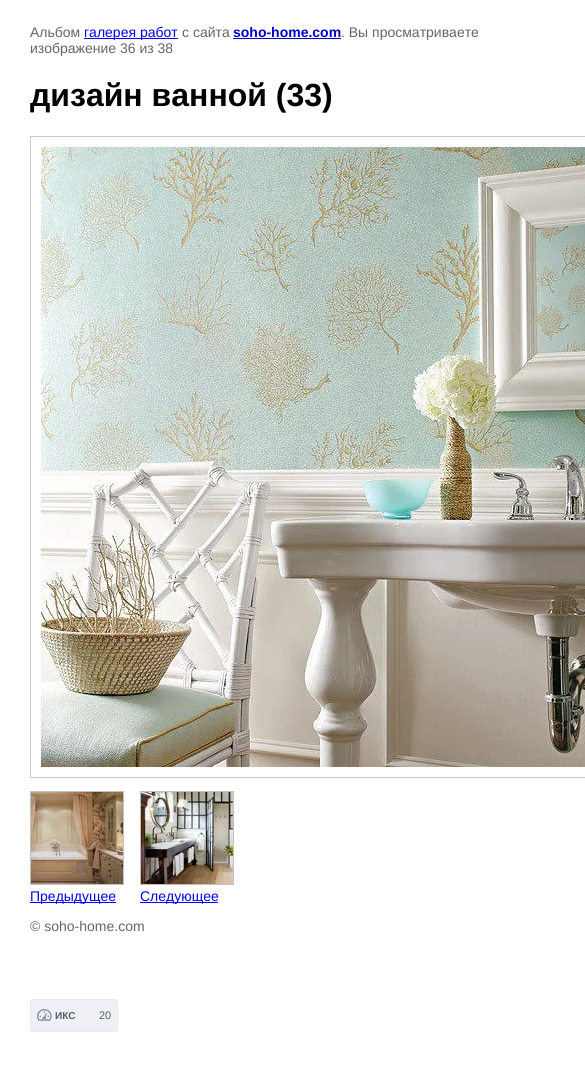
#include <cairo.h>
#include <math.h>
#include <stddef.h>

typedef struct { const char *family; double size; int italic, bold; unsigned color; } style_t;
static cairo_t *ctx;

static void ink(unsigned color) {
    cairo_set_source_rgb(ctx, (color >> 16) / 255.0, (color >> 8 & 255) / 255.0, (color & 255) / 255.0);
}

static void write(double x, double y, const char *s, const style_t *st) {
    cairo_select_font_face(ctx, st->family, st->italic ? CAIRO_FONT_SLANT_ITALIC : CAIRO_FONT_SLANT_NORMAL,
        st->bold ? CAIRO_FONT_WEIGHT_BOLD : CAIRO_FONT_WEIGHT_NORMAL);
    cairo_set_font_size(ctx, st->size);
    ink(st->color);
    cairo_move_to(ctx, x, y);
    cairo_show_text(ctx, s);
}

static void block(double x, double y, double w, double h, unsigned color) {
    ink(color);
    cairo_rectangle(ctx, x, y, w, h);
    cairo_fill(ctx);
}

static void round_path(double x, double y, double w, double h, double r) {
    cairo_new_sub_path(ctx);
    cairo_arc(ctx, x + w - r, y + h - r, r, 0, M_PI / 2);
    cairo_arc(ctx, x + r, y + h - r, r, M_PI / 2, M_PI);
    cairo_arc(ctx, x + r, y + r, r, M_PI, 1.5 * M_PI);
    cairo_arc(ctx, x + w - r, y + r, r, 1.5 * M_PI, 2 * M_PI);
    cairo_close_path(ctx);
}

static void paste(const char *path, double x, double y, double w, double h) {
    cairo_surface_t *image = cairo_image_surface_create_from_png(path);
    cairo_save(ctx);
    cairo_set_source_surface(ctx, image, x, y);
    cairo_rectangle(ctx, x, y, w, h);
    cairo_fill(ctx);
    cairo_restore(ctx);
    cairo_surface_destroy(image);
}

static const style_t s1 = {"Liberation Sans", 14, 0, 0, 0x666666};
static const style_t s2 = {"Liberation Sans", 14, 0, 0, 0x0000ff};
static const style_t s3 = {"Liberation Sans", 14, 0, 1, 0x0000cc};
static const style_t s4 = {"Liberation Sans", 32, 0, 1, 0x000000};
static const style_t s5 = {"Liberation Sans", 10, 0, 1, 0x52616b};
static const style_t s6 = {"Liberation Sans", 11, 0, 0, 0x52616b};

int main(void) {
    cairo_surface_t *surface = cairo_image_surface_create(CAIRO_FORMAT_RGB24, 585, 1089);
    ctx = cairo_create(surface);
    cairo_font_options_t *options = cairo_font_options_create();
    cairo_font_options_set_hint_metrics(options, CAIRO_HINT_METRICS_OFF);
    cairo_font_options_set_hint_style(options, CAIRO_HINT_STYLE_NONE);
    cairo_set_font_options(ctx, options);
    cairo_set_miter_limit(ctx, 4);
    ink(0xffffff);
    cairo_paint(ctx);
    write(30, 37, "Альбом", &s1);
    block(84, 38, 94, 1, 0x0000ff);
    write(84, 37, "галерея работ", &s2);
    write(182, 37, "с сайта", &s1);
    write(233, 37, "soho-home.com", &s3);
    block(233, 38, 108, 1, 0x0000cc);
    write(341, 37, ". Вы просматриваете", &s1);
    write(30, 53, "изображение 36 из 38", &s1);
    write(30, 106, "дизайн ванной (33)", &s4);
    cairo_rectangle(ctx, 30.5, 136.5, 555, 641);
    ink(0xcccccc);
    cairo_set_line_width(ctx, 1);
    cairo_stroke(ctx);
    paste("pic1.png", 41, 147, 544, 620);
    cairo_rectangle(ctx, 30.5, 791.5, 93, 93);
    ink(0xc0c0c0);
    cairo_stroke(ctx);
    paste("pic2.png", 31, 792, 92, 92);
    block(30, 902, 86, 1, 0x0000ff);
    write(30, 901, "Предыдущее", &s2);
    cairo_rectangle(ctx, 140.5, 791.5, 93, 93);
    ink(0xc0c0c0);
    cairo_stroke(ctx);
    paste("pic3.png", 141, 792, 92, 92);
    block(140, 902, 78, 1, 0x0000ff);
    write(140, 901, "Следующее", &s2);
    write(30, 931, "© soho-home.com", &s1);
    ink(0xeef0f5);
    round_path(30.5, 999.5, 87, 32, 2.5);
    cairo_fill_preserve(ctx);
    ink(0xe7eaf1);
    cairo_stroke(ctx);
    paste("pic4.png", 37, 1009, 15, 12);
    write(55, 1019, "ИКС", &s5);
    write(99, 1019, "20", &s6);
    cairo_surface_write_to_png(surface, "screenshot.png");
    cairo_font_options_destroy(options);
    cairo_destroy(ctx);
    cairo_surface_destroy(surface);
    return 0;
}
